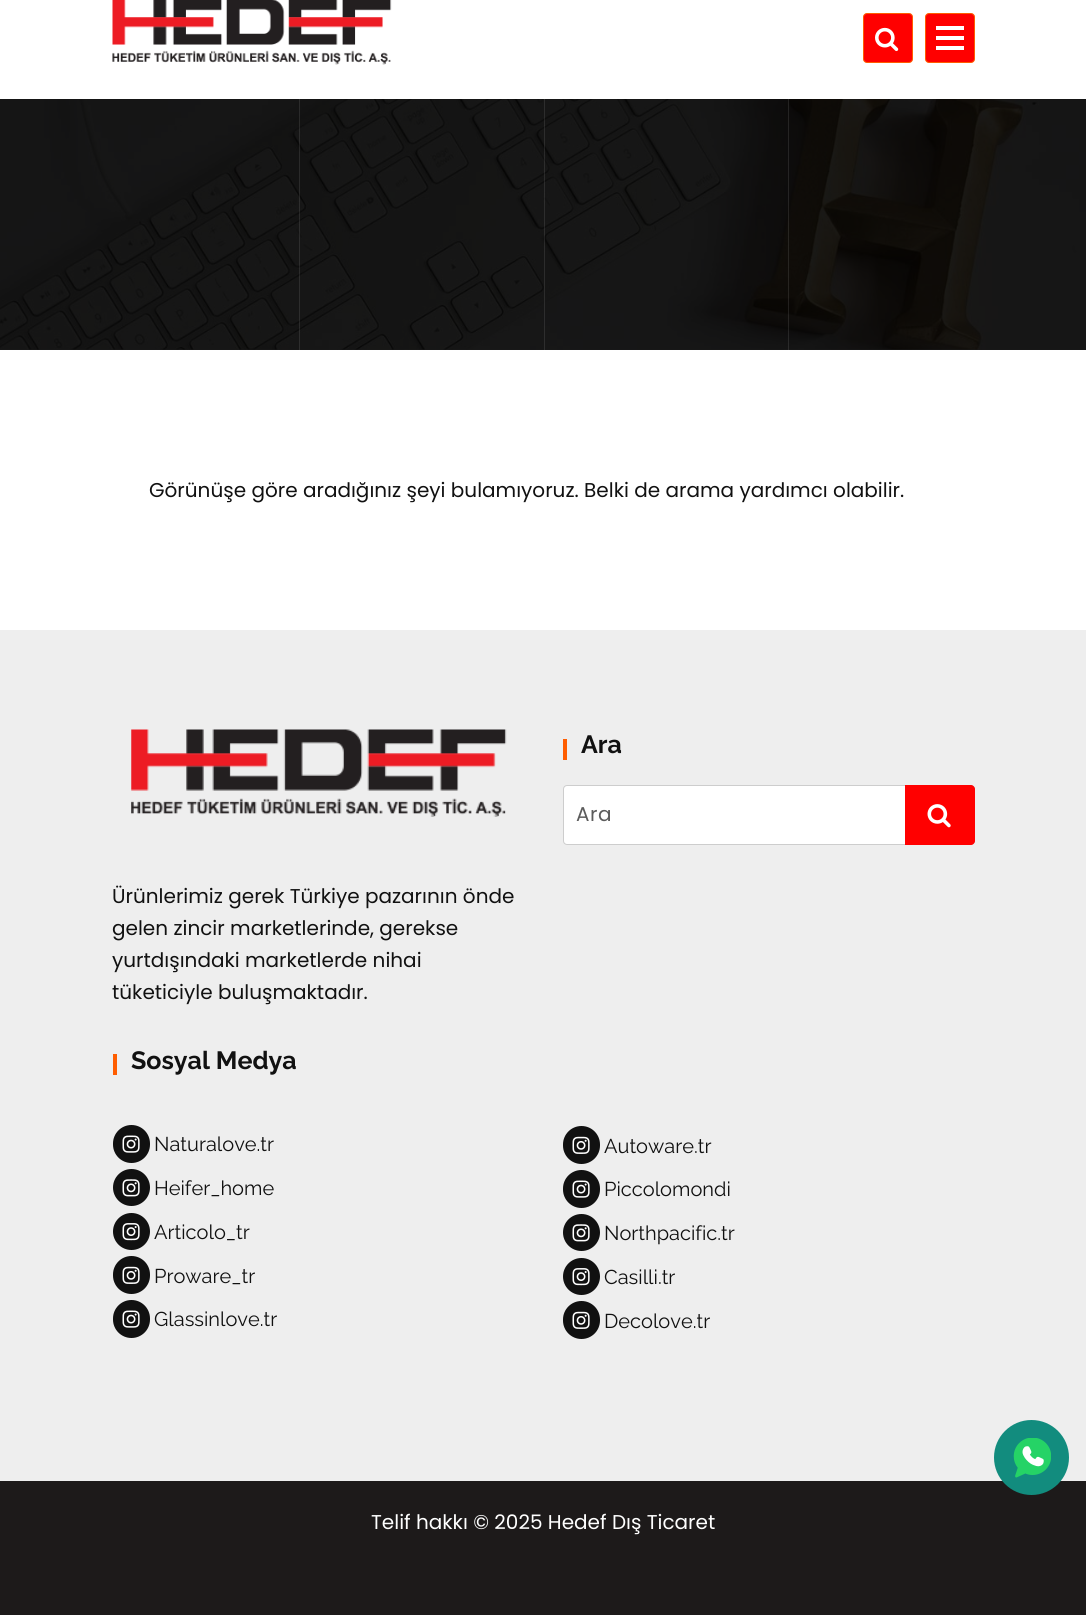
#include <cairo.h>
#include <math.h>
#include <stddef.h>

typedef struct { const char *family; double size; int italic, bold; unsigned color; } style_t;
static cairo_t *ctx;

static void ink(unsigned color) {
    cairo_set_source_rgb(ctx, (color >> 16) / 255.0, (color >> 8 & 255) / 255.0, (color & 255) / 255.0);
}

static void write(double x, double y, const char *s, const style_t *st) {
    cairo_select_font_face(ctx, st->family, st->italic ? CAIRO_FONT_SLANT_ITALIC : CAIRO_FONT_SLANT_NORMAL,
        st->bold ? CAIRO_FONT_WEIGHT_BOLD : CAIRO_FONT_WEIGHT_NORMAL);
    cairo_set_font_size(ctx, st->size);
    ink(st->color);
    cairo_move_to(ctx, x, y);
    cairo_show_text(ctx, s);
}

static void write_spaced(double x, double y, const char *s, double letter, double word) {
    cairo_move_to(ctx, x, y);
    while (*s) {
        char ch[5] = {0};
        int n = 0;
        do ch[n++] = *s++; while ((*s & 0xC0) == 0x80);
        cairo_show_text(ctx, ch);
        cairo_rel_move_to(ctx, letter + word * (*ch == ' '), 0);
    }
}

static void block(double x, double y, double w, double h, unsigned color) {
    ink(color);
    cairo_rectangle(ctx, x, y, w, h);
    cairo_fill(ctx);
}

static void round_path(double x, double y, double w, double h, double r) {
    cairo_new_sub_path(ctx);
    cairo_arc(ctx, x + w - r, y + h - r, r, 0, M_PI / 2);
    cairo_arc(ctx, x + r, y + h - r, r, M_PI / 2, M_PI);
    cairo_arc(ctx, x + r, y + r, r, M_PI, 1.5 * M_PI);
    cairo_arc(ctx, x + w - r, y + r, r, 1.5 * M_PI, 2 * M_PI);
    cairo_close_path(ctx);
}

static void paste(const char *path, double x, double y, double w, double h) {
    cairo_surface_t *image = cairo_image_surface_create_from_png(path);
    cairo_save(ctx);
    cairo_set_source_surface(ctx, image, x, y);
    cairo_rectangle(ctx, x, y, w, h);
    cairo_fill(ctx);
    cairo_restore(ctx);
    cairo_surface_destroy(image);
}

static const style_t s1 = {"Poppins", 20, 0, 0, 0x111111};
static const style_t s2 = {"Raleway", 25, 0, 1, 0x111111};
static const style_t s3 = {"Raleway", 20, 0, 0, 0x111111};
static const style_t s4 = {"Poppins", 20, 0, 0, 0xffffff};

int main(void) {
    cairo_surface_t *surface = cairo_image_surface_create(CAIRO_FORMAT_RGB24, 1086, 1615);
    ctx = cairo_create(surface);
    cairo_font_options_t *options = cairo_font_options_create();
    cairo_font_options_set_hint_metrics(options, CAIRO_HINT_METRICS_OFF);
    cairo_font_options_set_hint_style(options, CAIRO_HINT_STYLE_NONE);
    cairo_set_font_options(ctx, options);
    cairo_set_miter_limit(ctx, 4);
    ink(0xffffff);
    cairo_paint(ctx);
    block(0, 349, 1086, 1, 0x191919);
    paste("pic1.png", 112, 0, 280, 65);
    ink(0xff0000);
    round_path(863.5, 13.5, 49, 49, 3.5);
    cairo_fill_preserve(ctx);
    ink(0xff5d00);
    cairo_set_line_width(ctx, 1);
    cairo_stroke(ctx);
    paste("pic2.png", 875, 27, 24, 25);
    ink(0xff0000);
    round_path(925.5, 13.5, 49, 49, 3.5);
    cairo_fill_preserve(ctx);
    ink(0xff5d00);
    cairo_stroke(ctx);
    block(936, 26, 28, 4, 0xffffff);
    block(936, 36, 28, 4, 0xffffff);
    block(936, 46, 28, 4, 0xffffff);
    paste("pic3.png", 0, 99, 1086, 251);
    cairo_set_source_rgba(ctx, 1, 1, 1, 0.1);
    cairo_rectangle(ctx, 299, 99, 1, 251);
    cairo_fill(ctx);
    cairo_rectangle(ctx, 544, 99, 1, 251);
    cairo_fill(ctx);
    cairo_rectangle(ctx, 788, 99, 1, 251);
    cairo_fill(ctx);
    write(149, 497, "Görünüşe göre aradığınız şeyi bulamıyoruz. Belki de arama yardımcı olabilir.", &s1);
    block(0, 630, 1086, 851, 0xeeeeee);
    block(563, 739, 4, 21, 0xff5d00);
    write(581, 753, "Ara", &s2);
    ink(0xffffff);
    round_path(563.5, 785.5, 411, 59, 3.5);
    cairo_fill_preserve(ctx);
    ink(0xcdcdcd);
    cairo_stroke(ctx);
    cairo_select_font_face(ctx, "Poppins", CAIRO_FONT_SLANT_NORMAL, CAIRO_FONT_WEIGHT_NORMAL);
    cairo_set_font_size(ctx, 20);
    ink(0x5c5c5c);
    write_spaced(576, 821, "Ara", 0.5, 0);
    ink(0xff0000);
    cairo_new_path(ctx);
    cairo_move_to(ctx, 905, 785);
    cairo_line_to(ctx, 971, 785);
    cairo_curve_to(ctx, 973, 785, 975, 787, 975, 789);
    cairo_line_to(ctx, 975, 841);
    cairo_curve_to(ctx, 975, 843, 973, 845, 971, 845);
    cairo_line_to(ctx, 905, 845);
    cairo_close_path(ctx);
    cairo_fill(ctx);
    paste("pic4.png", 927, 804, 24, 24);
    paste("pic5.png", 131, 729, 376, 88);
    write(112, 903, "Ürünlerimiz gerek Türkiye pazarının önde", &s1);
    write(112, 935, "gelen zincir marketlerinde, gerekse", &s1);
    write(112, 967, "yurtdışındaki marketlerde nihai", &s1);
    write(112, 999, "tüketiciyle buluşmaktadır.", &s1);
    block(113, 1054, 4, 21, 0xff5d00);
    write(131, 1069, "Sosyal Medya", &s2);
    round_path(113, 1125, 37, 38, 18.5);
    cairo_fill(ctx);
    paste("pic6.png", 122, 1135, 18, 18);
    write(154, 1151, "Naturalove.tr", &s3);
    cairo_new_path(ctx);
    cairo_arc(ctx, 131.5, 1187.5, 18.5, 0, 2 * M_PI);
    cairo_fill(ctx);
    paste("pic7.png", 122, 1179, 18, 18);
    write(154, 1195, "Heifer_home", &s3);
    cairo_new_path(ctx);
    cairo_arc(ctx, 131.5, 1231.5, 18.5, 0, 2 * M_PI);
    cairo_fill(ctx);
    paste("pic8.png", 122, 1223, 18, 18);
    write(154, 1239, "Articolo_tr", &s3);
    round_path(113, 1256, 37, 38, 18.5);
    cairo_fill(ctx);
    paste("pic9.png", 122, 1266, 18, 18);
    write(154, 1283, "Proware_tr", &s3);
    round_path(113, 1300, 37, 38, 18.5);
    cairo_fill(ctx);
    paste("pic6.png", 122, 1310, 18, 18);
    write(154, 1326, "Glassinlove.tr", &s3);
    round_path(563, 1126, 37, 38, 18.5);
    cairo_fill(ctx);
    paste("pic9.png", 572, 1136, 18, 18);
    write(604, 1153, "Autoware.tr", &s3);
    round_path(563, 1170, 37, 38, 18.5);
    cairo_fill(ctx);
    paste("pic6.png", 572, 1180, 18, 18);
    write(604, 1196, "Piccolomondi", &s3);
    cairo_new_path(ctx);
    cairo_arc(ctx, 581.5, 1232.5, 18.5, 0, 2 * M_PI);
    cairo_fill(ctx);
    paste("pic7.png", 572, 1224, 18, 18);
    write(604, 1240, "Northpacific.tr", &s3);
    cairo_new_path(ctx);
    cairo_arc(ctx, 581.5, 1276.5, 18.5, 0, 2 * M_PI);
    cairo_fill(ctx);
    paste("pic8.png", 572, 1268, 18, 18);
    write(604, 1284, "Casilli.tr", &s3);
    round_path(563, 1301, 37, 38, 18.5);
    cairo_fill(ctx);
    paste("pic9.png", 572, 1311, 18, 18);
    write(604, 1328, "Decolove.tr", &s3);
    block(0, 1481, 1086, 134, 0x1d1a1a);
    ink(0x128c7e);
    cairo_new_path(ctx);
    cairo_arc(ctx, 1031.5, 1457.5, 37.5, 0, 2 * M_PI);
    cairo_fill(ctx);
    paste("pic10.png", 1013, 1438, 38, 40);
    write(371, 1529, "Telif hakkı © 2025 Hedef Dış Ticaret", &s4);
    cairo_surface_write_to_png(surface, "screenshot.png");
    cairo_font_options_destroy(options);
    cairo_destroy(ctx);
    cairo_surface_destroy(surface);
    return 0;
}
